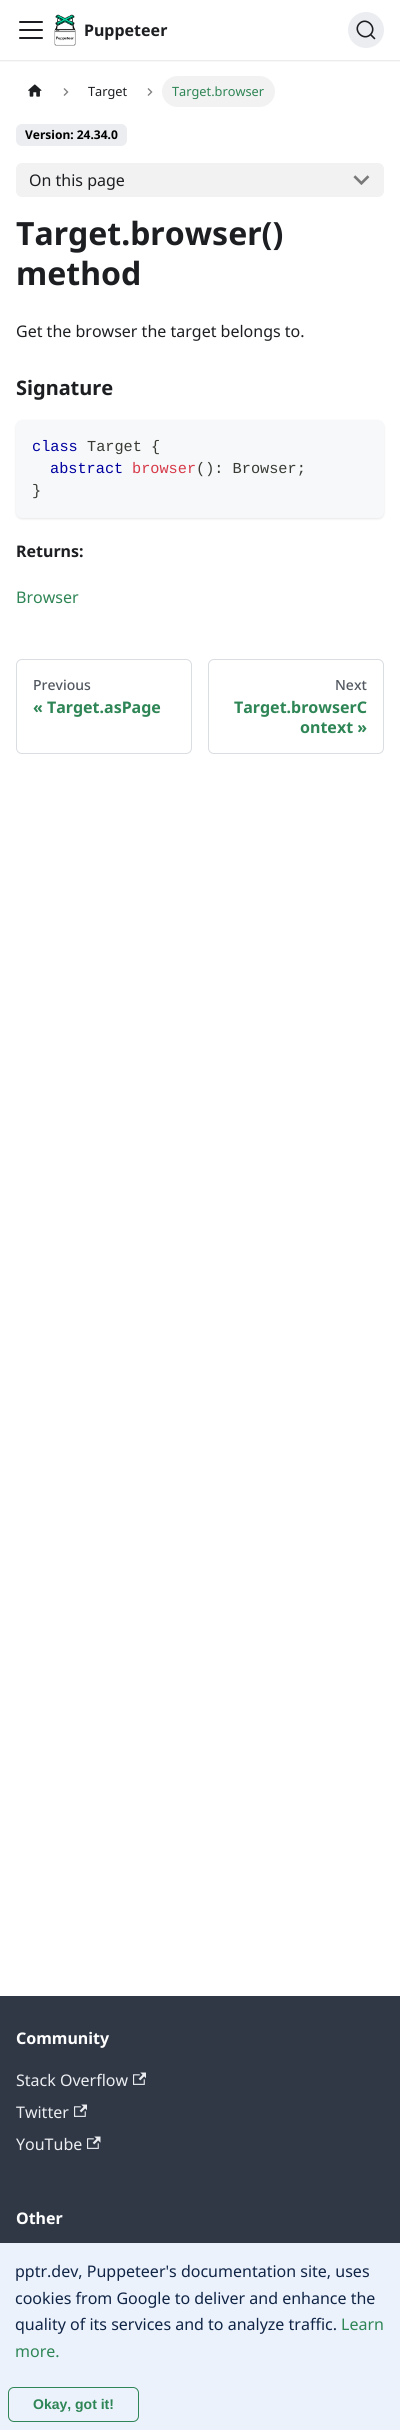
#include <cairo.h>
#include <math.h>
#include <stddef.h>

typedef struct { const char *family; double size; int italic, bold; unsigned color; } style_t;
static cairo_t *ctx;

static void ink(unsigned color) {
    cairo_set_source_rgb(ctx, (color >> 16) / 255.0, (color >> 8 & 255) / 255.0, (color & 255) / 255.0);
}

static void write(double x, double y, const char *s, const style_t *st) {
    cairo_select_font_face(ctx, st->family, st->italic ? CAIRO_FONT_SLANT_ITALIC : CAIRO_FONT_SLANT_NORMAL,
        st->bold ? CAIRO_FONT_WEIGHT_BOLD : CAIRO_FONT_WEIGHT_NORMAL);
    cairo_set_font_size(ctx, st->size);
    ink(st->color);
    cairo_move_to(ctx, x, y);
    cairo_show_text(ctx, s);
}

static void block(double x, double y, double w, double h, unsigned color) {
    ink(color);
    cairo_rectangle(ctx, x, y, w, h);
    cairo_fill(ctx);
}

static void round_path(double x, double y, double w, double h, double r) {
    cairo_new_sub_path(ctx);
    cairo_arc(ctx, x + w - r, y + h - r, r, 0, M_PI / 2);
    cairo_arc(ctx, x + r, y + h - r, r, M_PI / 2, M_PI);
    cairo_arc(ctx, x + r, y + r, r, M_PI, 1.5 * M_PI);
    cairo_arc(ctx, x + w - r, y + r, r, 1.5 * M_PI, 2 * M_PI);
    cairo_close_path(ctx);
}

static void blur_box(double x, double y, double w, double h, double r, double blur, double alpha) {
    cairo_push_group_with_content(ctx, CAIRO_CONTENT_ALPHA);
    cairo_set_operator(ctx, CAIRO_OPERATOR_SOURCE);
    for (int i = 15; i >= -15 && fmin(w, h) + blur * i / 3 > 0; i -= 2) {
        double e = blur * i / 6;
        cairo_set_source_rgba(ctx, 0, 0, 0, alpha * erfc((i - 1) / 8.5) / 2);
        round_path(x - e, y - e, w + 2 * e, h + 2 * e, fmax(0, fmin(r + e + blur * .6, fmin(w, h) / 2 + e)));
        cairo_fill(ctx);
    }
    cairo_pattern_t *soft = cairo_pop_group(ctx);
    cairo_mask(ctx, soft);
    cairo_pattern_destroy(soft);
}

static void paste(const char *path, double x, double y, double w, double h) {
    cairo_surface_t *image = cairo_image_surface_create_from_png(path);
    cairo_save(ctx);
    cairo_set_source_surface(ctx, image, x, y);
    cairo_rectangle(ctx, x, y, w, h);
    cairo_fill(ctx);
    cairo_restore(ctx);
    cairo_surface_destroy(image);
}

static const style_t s1 = {"Noto Sans", 16, 0, 1, 0x1c1e21};
static const style_t s2 = {"Noto Sans", 12.75, 0, 0, 0x1c1e21};
static const style_t s3 = {"Noto Sans", 12.75, 0, 0, 0x2e8555};
static const style_t s4 = {"Noto Sans", 12, 0, 1, 0x000000};
static const style_t s5 = {"Noto Sans", 16, 0, 0, 0x1c1e21};
static const style_t s6 = {"Noto Sans", 32, 0, 1, 0x1c1e21};
static const style_t s7 = {"Noto Sans", 20, 0, 1, 0x1c1e21};
static const style_t s8 = {"Liberation Mono", 15.25, 0, 0, 0x00009f};
static const style_t s9 = {"Liberation Mono", 15.25, 0, 0, 0x393a34};
static const style_t s10 = {"Liberation Mono", 15.25, 0, 0, 0xd73a49};
static const style_t s11 = {"Noto Sans", 16, 0, 0, 0x2e8555};
static const style_t s12 = {"Noto Sans Medium", 14, 0, 0, 0x525860};
static const style_t s13 = {"Noto Sans", 16, 0, 1, 0x2e8555};
static const style_t s14 = {"Noto Sans", 16, 0, 1, 0xffffff};
static const style_t s15 = {"Noto Sans", 16, 0, 0, 0xebedf0};
static const style_t s16 = {"Noto Sans", 16, 0, 0, 0x102445};
static const style_t s17 = {"Liberation Sans", 14, 0, 1, 0x2e8555};

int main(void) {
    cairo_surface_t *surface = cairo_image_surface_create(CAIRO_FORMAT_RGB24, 400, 2430);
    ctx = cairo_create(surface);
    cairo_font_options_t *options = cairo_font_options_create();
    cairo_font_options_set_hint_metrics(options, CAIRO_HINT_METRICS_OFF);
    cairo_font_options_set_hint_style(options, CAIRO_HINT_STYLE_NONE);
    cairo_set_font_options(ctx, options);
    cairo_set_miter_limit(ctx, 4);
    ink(0xffffff);
    cairo_paint(ctx);
    cairo_save(ctx);
    cairo_rectangle(ctx, 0, 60, 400, 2);
    cairo_clip(ctx);
    ink(0x000000);
    blur_box(0, 1, 400, 60, 0, 1, 0.1);
    cairo_restore(ctx);
    paste("pic1.png", 19, 21, 24, 18);
    paste("pic2.png", 54, 14, 22, 32);
    write(84, 36, "Puppeteer", &s1);
    ink(0xebedf0);
    cairo_new_path(ctx);
    cairo_arc(ctx, 366, 30, 18, 0, 2 * M_PI);
    cairo_fill(ctx);
    cairo_new_path(ctx);
    cairo_move_to(ctx, 370.5, 34.5);
    cairo_line_to(ctx, 374.5, 38.5);
    cairo_line_to(ctx, 370.5, 34.5);
    cairo_curve_to(ctx, 363.5, 41.5, 352.5, 30.5, 359.5, 23.5);
    cairo_curve_to(ctx, 366.5, 16.5, 377.5, 27.5, 370.5, 34.5);
    cairo_close_path(ctx);
    ink(0x1c1e21);
    cairo_set_line_width(ctx, 1.6);
    cairo_set_line_cap(ctx, CAIRO_LINE_CAP_ROUND);
    cairo_set_line_join(ctx, CAIRO_LINE_JOIN_ROUND);
    cairo_stroke(ctx);
    paste("pic3.png", 28, 84, 14, 13);
    paste("pic4.png", 63, 88, 6, 8);
    write(88, 96, "Target", &s2);
    paste("pic4.png", 147, 88, 6, 8);
    ink(0xf2f2f2);
    round_path(162, 76, 113, 31, 15.5);
    cairo_fill(ctx);
    write(172, 96, "Target.browser", &s3);
    ink(0xebedf0);
    round_path(16.5, 124.5, 110, 21, 5.5);
    cairo_fill_preserve(ctx);
    cairo_set_line_width(ctx, 1);
    cairo_set_line_cap(ctx, CAIRO_LINE_CAP_BUTT);
    cairo_set_line_join(ctx, CAIRO_LINE_JOIN_MITER);
    cairo_stroke(ctx);
    write(25, 139, "Version: 24.34.0", &s4);
    ink(0xf2f2f2);
    round_path(16, 163, 368, 34, 6);
    cairo_fill(ctx);
    write(29, 186, "On this page", &s5);
    paste("pic5.png", 353, 175, 17, 10);
    write(16, 245, "Target.browser()", &s6);
    write(16, 285, "method", &s6);
    write(16, 337, "Get the browser the target belongs to.", &s5);
    write(16, 395, "Signature", &s7);
    ink(0x000000);
    blur_box(16, 421, 368, 98, 6, 1, 0.1);
    ink(0xf6f8fa);
    round_path(16, 420, 368, 98, 6);
    cairo_fill(ctx);
    write(32, 451, "class", &s8);
    write(87, 451, "Target {", &s9);
    write(50, 473, "abstract", &s8);
    write(132, 473, "browser", &s10);
    write(196, 473, "(): Browser;", &s9);
    write(32, 495, "}", &s9);
    write(16, 557, "Returns:", &s1);
    write(16, 603, "Browser", &s11);
    round_path(16.5, 659.5, 175, 94, 5.5);
    ink(0xdadde1);
    cairo_stroke(ctx);
    write(33, 690, "Previous", &s12);
    write(33, 713, "« Target.asPage", &s13);
    round_path(208.5, 659.5, 175, 94, 5.5);
    ink(0xdadde1);
    cairo_stroke(ctx);
    write(335, 690, "Next", &s12);
    write(234, 713, "Target.browserC", &s13);
    write(300, 733, "ontext »", &s13);
    block(0, 1996, 400, 247, 0x303846);
    write(16, 2044, "Community", &s14);
    write(16, 2086, "Stack Overflow", &s15);
    paste("pic6.png", 133, 2072, 13, 13);
    write(16, 2118, "Twitter", &s15);
    paste("pic6.png", 74, 2104, 13, 13);
    write(16, 2150, "YouTube", &s15);
    paste("pic7.png", 87, 2136, 14, 13);
    write(16, 2224, "Other", &s14);
    block(0, 2243, 400, 187, 0xebf2fc);
    write(15, 2277, "pptr.dev, Puppeteer's documentation site, uses", &s16);
    write(15, 2304, "cookies from Google to deliver and enhance the", &s16);
    write(15, 2330, "quality of its services and to analyze traffic.", &s16);
    write(341, 2330, "Learn", &s11);
    write(15, 2357, "more.", &s11);
    round_path(8.5, 2387.5, 130, 34, 5.5);
    cairo_stroke(ctx);
    write(33, 2409, "Okay, got it!", &s17);
    cairo_surface_write_to_png(surface, "screenshot.png");
    cairo_font_options_destroy(options);
    cairo_destroy(ctx);
    cairo_surface_destroy(surface);
    return 0;
}
